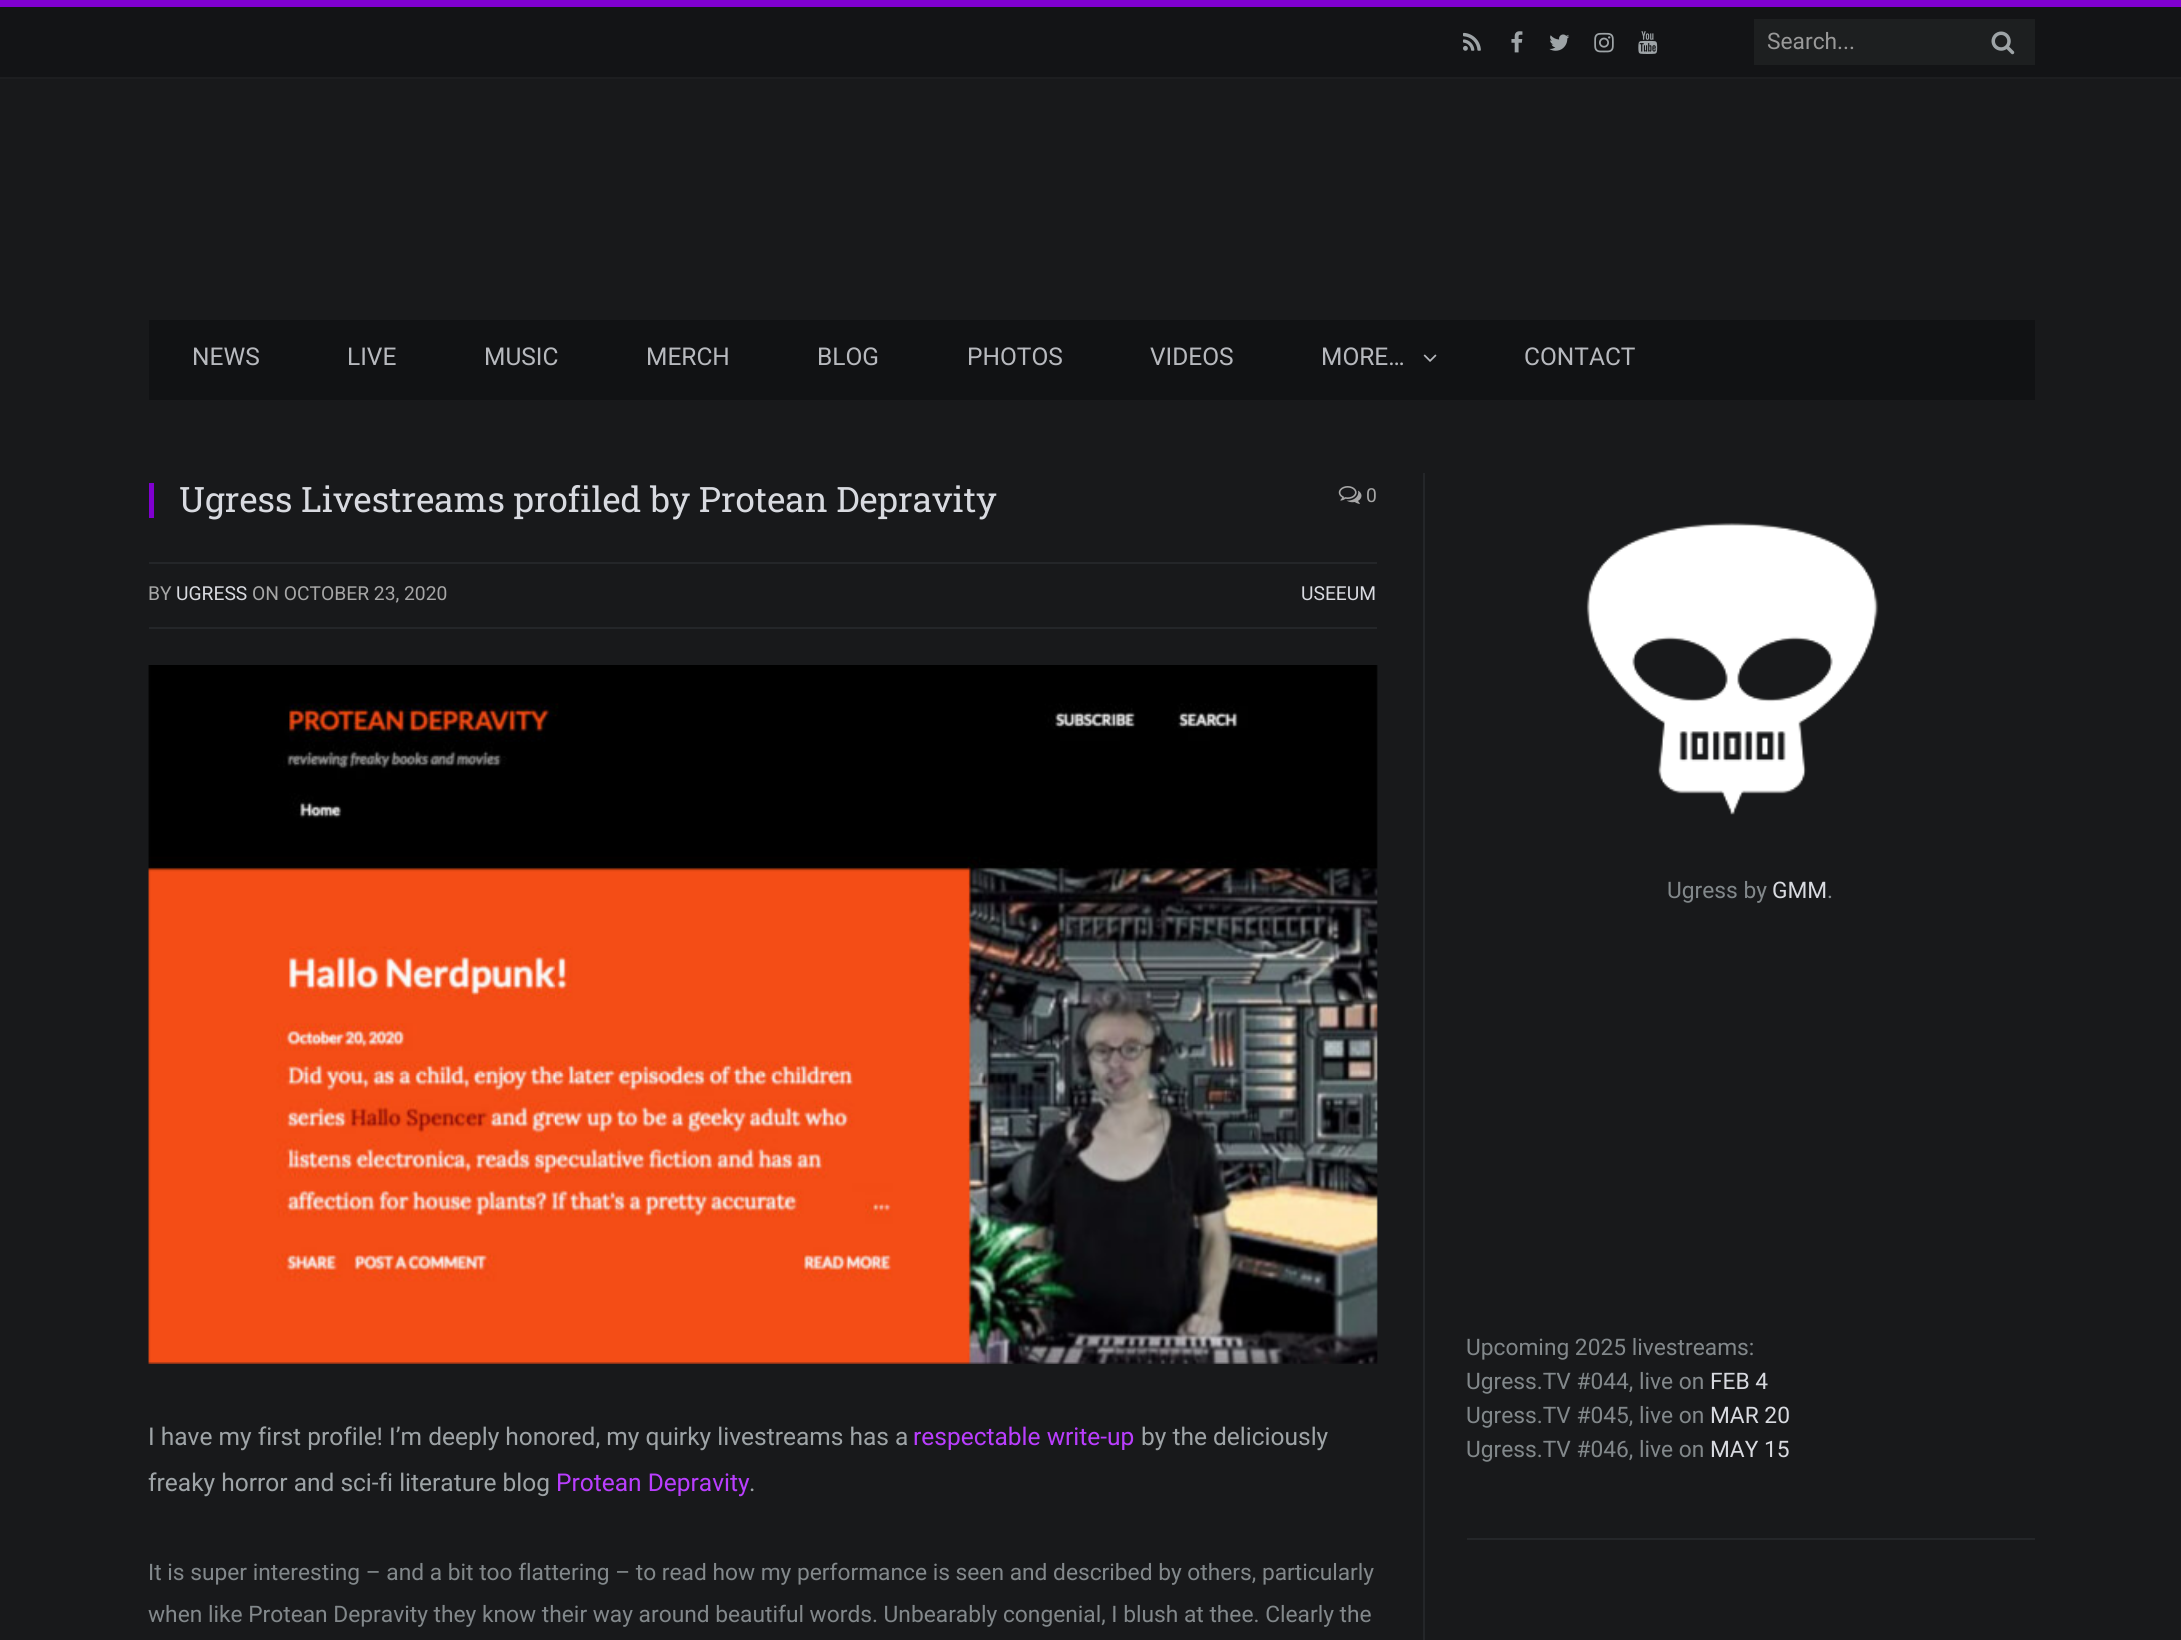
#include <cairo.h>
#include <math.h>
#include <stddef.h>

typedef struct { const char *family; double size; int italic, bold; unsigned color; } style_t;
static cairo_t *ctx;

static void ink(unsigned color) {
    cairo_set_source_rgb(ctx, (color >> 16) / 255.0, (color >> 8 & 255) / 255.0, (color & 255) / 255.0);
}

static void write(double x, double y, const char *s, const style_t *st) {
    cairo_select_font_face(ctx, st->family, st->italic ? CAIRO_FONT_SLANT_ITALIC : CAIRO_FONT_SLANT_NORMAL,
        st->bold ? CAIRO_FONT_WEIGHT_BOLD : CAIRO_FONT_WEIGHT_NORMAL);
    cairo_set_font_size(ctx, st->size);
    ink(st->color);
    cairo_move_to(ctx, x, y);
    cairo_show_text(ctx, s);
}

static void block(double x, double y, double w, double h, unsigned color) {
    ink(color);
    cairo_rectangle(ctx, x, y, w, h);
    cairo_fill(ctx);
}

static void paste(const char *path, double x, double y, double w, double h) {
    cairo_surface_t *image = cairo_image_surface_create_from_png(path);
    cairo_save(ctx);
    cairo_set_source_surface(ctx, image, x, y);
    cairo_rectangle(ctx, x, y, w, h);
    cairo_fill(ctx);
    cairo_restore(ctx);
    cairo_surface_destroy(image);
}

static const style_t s1 = {"Roboto", 22.75, 0, 0, 0x999999};
static const style_t s2 = {"Roboto", 24.5, 0, 0, 0xb7b9be};
static const style_t s3 = {"Roboto Slab", 35, 0, 0, 0xd8dae0};
static const style_t s4 = {"Roboto", 19.25, 0, 0, 0xa6a6a6};
static const style_t s5 = {"Roboto", 19.25, 0, 0, 0xd8dae0};
static const style_t s6 = {"Roboto", 24.5, 0, 0, 0x9ea4a7};
static const style_t s7 = {"Roboto", 24.5, 0, 0, 0xba3eff};
static const style_t s8 = {"Roboto", 22.75, 0, 0, 0x82888b};
static const style_t s9 = {"Roboto", 22.75, 0, 0, 0xd8dae0};

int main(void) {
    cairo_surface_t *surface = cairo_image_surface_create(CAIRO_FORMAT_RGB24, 2181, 1640);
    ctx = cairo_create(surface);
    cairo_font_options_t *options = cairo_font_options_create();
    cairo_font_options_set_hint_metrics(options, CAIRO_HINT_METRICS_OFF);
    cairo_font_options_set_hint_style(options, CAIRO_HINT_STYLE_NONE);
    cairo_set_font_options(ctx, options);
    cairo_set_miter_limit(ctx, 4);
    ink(0x18191b);
    cairo_paint(ctx);
    block(0, 7, 2181, 70, 0x131416);
    block(0, 0, 2181, 7, 0x8000d0);
    block(0, 77, 2181, 2, 0x1d1e20);
    paste("pic1.png", 1463, 32, 18, 19);
    paste("pic2.png", 1511, 31, 12, 22);
    paste("pic3.png", 1549, 34, 21, 17);
    paste("pic4.png", 1594, 32, 20, 21);
    paste("pic5.png", 1638, 31, 20, 23);
    block(1754, 19, 281, 46, 0x1d1f20);
    write(1767, 49, "Search...", &s1);
    paste("pic6.png", 1991, 31, 24, 24);
    block(149, 320, 1886, 80, 0x111214);
    write(192, 365, "NEWS", &s2);
    write(347, 365, "LIVE", &s2);
    write(484, 365, "MUSIC", &s2);
    write(646, 365, "MERCH", &s2);
    write(817, 365, "BLOG", &s2);
    write(967, 365, "PHOTOS", &s2);
    write(1150, 365, "VIDEOS", &s2);
    write(1321, 365, "MORE…", &s2);
    paste("pic7.png", 1423, 354, 14, 8);
    write(1524, 365, "CONTACT", &s2);
    block(149, 483, 5, 35, 0x8000d0);
    write(179, 512, "Ugress Livestreams profiled by Protean Depravity", &s3);
    paste("pic8.png", 1338, 486, 24, 18);
    write(1366, 502, "0", &s4);
    block(149, 562, 1228, 2, 0x242629);
    block(149, 627, 1228, 2, 0x242629);
    write(148, 600, "BY", &s4);
    write(176, 600, "UGRESS", &s5);
    write(252, 600, "ON OCTOBER 23, 2020", &s4);
    write(1301, 600, "USEEUM", &s5);
    paste("pic9.png", 148, 665, 1230, 699);
    write(148, 1445, "I have my first profile! I’m deeply honored, my quirky livestreams has a", &s6);
    write(913, 1445, "respectable write-up", &s7);
    write(1141, 1445, "by the deliciously", &s6);
    write(148, 1491, "freaky horror and sci-fi literature blog", &s6);
    write(556, 1491, "Protean Depravity", &s7);
    write(749, 1491, ".", &s6);
    write(148, 1580, "It is super interesting – and a bit too flattering – to read how my performance is seen and described by others, particularly", &s8);
    write(148, 1622, "when like Protean Depravity they know their way around beautiful words. Unbearably congenial, I blush at thee. Clearly the", &s8);
    block(1423, 473, 2, 1167, 0x242629);
    paste("pic10.png", 1586, 522, 293, 293);
    write(1667, 898, "Ugress by", &s8);
    write(1772, 898, "GMM", &s9);
    write(1827, 898, ".", &s8);
    write(1466, 1355, "Upcoming 2025 livestreams:", &s8);
    write(1466, 1389, "Ugress.TV #044, live on", &s8);
    write(1710, 1389, "FEB 4", &s9);
    write(1466, 1423, "Ugress.TV #045, live on", &s8);
    write(1710, 1423, "MAR 20", &s9);
    write(1466, 1457, "Ugress.TV #046, live on", &s8);
    write(1710, 1457, "MAY 15", &s9);
    block(1467, 1538, 568, 2, 0x242629);
    cairo_surface_write_to_png(surface, "screenshot.png");
    cairo_font_options_destroy(options);
    cairo_destroy(ctx);
    cairo_surface_destroy(surface);
    return 0;
}
